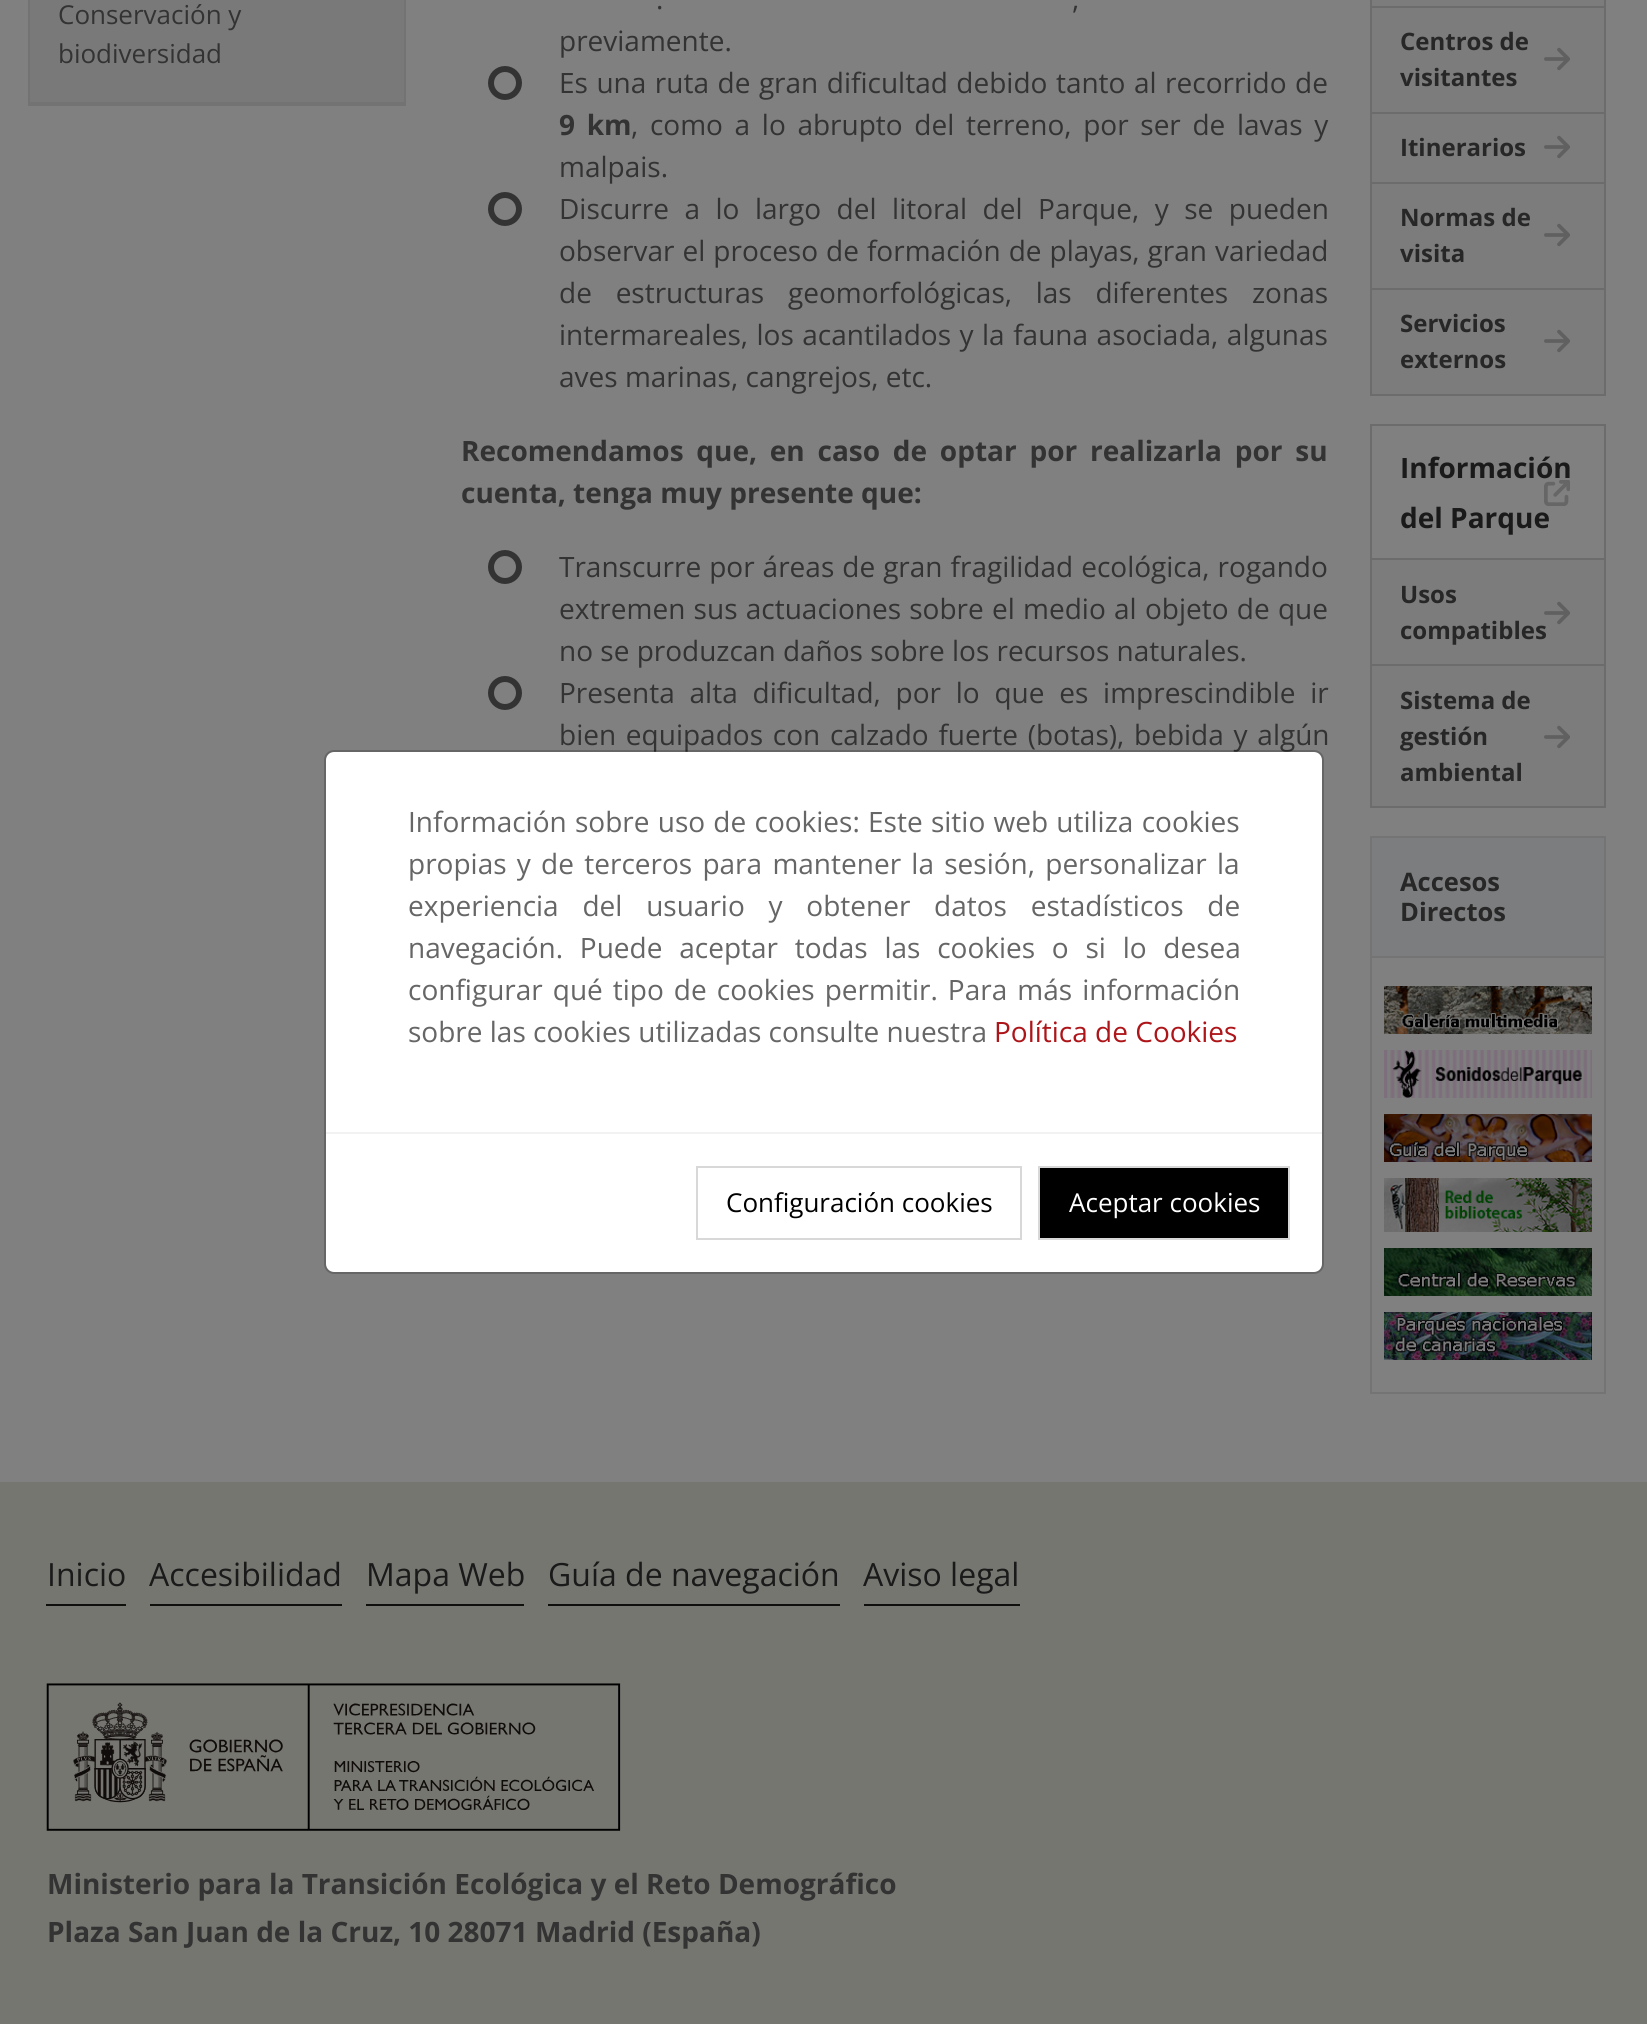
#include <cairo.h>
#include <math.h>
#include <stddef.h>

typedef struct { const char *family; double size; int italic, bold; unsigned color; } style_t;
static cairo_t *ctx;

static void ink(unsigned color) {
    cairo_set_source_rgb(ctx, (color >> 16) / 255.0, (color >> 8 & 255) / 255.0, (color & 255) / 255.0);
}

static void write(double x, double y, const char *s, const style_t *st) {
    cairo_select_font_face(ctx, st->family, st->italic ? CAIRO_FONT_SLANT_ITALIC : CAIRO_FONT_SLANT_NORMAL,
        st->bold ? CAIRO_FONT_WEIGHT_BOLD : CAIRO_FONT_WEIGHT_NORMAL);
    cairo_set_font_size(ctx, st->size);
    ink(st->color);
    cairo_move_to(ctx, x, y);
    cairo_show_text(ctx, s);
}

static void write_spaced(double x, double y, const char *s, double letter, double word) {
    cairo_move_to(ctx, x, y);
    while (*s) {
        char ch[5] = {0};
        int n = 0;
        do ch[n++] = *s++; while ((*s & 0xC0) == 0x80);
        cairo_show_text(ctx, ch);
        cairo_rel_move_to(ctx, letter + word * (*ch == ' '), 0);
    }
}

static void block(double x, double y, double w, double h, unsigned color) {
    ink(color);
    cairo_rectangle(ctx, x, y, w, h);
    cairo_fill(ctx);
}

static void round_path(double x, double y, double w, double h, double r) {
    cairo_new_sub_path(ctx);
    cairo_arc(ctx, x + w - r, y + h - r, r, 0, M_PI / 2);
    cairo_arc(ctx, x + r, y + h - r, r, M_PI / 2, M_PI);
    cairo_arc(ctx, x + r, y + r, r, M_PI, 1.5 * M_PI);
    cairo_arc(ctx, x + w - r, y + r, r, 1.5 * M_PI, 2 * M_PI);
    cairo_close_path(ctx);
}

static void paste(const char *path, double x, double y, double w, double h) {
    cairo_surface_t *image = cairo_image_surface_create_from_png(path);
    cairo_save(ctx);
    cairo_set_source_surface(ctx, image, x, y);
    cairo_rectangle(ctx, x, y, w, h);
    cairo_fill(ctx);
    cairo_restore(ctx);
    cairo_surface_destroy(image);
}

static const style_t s1 = {"Open Sans", 26, 0, 0, 0x333333};
static const style_t s2 = {"Open Sans", 28, 0, 0, 0x333333};
static const style_t s3 = {"Open Sans", 28, 0, 1, 0x333333};
static const style_t s4 = {"Open Sans", 24, 0, 1, 0x272727};
static const style_t s5 = {"Open Sans", 28, 0, 1, 0x1a1a1a};
static const style_t s6 = {"Open Sans", 25.5, 0, 1, 0x272727};
static const style_t s7 = {"Open Sans", 28, 0, 0, 0x666666};
static const style_t s8 = {"Open Sans", 28, 0, 0, 0xad1519};
static const style_t s9 = {"Open Sans", 26, 0, 0, 0x000000};
static const style_t s10 = {"Open Sans", 26, 0, 0, 0xffffff};
static const style_t s11 = {"Open Sans", 32, 0, 0, 0x1a1a1a};

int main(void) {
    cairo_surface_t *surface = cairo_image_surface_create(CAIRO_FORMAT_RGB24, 1647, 2024);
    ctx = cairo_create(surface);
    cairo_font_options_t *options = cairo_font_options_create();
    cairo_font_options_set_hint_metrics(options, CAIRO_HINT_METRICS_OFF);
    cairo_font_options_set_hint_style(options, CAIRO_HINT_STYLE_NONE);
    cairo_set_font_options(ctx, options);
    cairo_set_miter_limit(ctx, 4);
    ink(0x808080);
    cairo_paint(ctx);
    cairo_rectangle(ctx, 29, -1, 376, 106);
    ink(0x737373);
    cairo_stroke(ctx);
    block(30, 0, 374, 102, 0x797979);
    block(30, 102, 374, 2, 0x737373);
    write(58, 24, "Conservación y", &s1);
    write(58, 63, "biodiversidad", &s1);
    cairo_set_font_size(ctx, 28);
    write_spaced(656, 9, ".", 0, 3);
    write_spaced(1072, 9, ",", 0, 3);
    write(559, 51, "previamente.", &s2);
    cairo_new_path(ctx);
    cairo_arc(ctx, 505, 83, 14, 0, 2 * M_PI);
    cairo_set_line_width(ctx, 6);
    cairo_stroke(ctx);
    write_spaced(559, 93, "Es una ruta de gran dificultad debido tanto al recorrido de", 0, 1.25);
    cairo_select_font_face(ctx, "Open Sans", CAIRO_FONT_SLANT_NORMAL, CAIRO_FONT_WEIGHT_BOLD);
    write_spaced(559, 135, "9 km", 0, 4.4);
    cairo_select_font_face(ctx, "Open Sans", CAIRO_FONT_SLANT_NORMAL, CAIRO_FONT_WEIGHT_NORMAL);
    write_spaced(631, 135, ", como a lo abrupto del terreno, por ser de lavas y", 0, 4.4);
    write(559, 177, "malpais.", &s2);
    cairo_new_path(ctx);
    cairo_arc(ctx, 505, 209, 14, 0, 2 * M_PI);
    cairo_stroke(ctx);
    write_spaced(559, 219, "Discurre a lo largo del litoral del Parque, y se pueden", 0, 8.25);
    write_spaced(559, 261, "observar el proceso de formación de playas, gran variedad", 0, 0.75);
    write_spaced(559, 303, "de estructuras geomorfológicas, las diferentes zonas", 0, 16.5);
    write_spaced(559, 345, "intermareales, los acantilados y la fauna asociada, algunas", 0, 1.25);
    write(559, 387, "aves marinas, cangrejos, etc.", &s2);
    cairo_select_font_face(ctx, "Open Sans", CAIRO_FONT_SLANT_NORMAL, CAIRO_FONT_WEIGHT_BOLD);
    write_spaced(461, 461, "Recomendamos que, en caso de optar por realizarla por su", 0, 5.5);
    write(461, 503, "cuenta, tenga muy presente que:", &s3);
    cairo_new_path(ctx);
    cairo_arc(ctx, 505, 567, 14, 0, 2 * M_PI);
    cairo_stroke(ctx);
    cairo_select_font_face(ctx, "Open Sans", CAIRO_FONT_SLANT_NORMAL, CAIRO_FONT_WEIGHT_NORMAL);
    write_spaced(559, 577, "Transcurre por áreas de gran fragilidad ecológica, rogando", 0, 0.75);
    write_spaced(559, 619, "extremen sus actuaciones sobre el medio al objeto de que", 0, 1);
    write(559, 661, "no se produzcan daños sobre los recursos naturales.", &s2);
    cairo_new_path(ctx);
    cairo_arc(ctx, 505, 693, 14, 0, 2 * M_PI);
    cairo_stroke(ctx);
    write_spaced(559, 703, "Presenta alta dificultad, por lo que es imprescindible ir", 0, 7.5);
    write_spaced(559, 745, "bien equipados con calzado fuerte (botas), bebida y algún", 0, 2.5);
    block(1372, 0, 232, 394, 0x7c7c7c);
    block(1604, 0, 2, 396, 0x6c6c6c);
    block(1370, 0, 2, 396, 0x6c6c6c);
    block(1372, 6, 232, 2, 0x6c6c6c);
    block(1372, 112, 232, 2, 0x6c6c6c);
    write(1400, 50, "Centros de", &s4);
    paste("pic1.png", 1544, 47, 26, 24);
    write(1400, 86, "visitantes", &s4);
    block(1372, 182, 232, 2, 0x6c6c6c);
    write(1400, 156, "Itinerarios", &s4);
    paste("pic1.png", 1544, 135, 26, 24);
    block(1372, 288, 232, 2, 0x6c6c6c);
    write(1400, 226, "Normas de", &s4);
    paste("pic1.png", 1544, 223, 26, 24);
    write(1400, 262, "visita", &s4);
    block(1372, 394, 232, 2, 0x6c6c6c);
    write(1400, 332, "Servicios", &s4);
    paste("pic1.png", 1544, 329, 26, 24);
    write(1400, 368, "externos", &s4);
    block(1372, 560, 232, 246, 0x7c7c7c);
    block(1370, 424, 236, 2, 0x6c6c6c);
    block(1604, 424, 2, 384, 0x6c6c6c);
    block(1370, 424, 2, 384, 0x6c6c6c);
    block(1372, 558, 232, 2, 0x6c6c6c);
    write(1400, 478, "Información", &s5);
    paste("pic2.png", 1544, 480, 26, 26);
    write(1400, 528, "del Parque", &s5);
    block(1372, 664, 232, 2, 0x6c6c6c);
    write(1400, 603, "Usos", &s4);
    write(1400, 639, "compatibles", &s4);
    paste("pic1.png", 1544, 601, 26, 24);
    block(1372, 806, 232, 2, 0x6c6c6c);
    write(1400, 709, "Sistema de", &s4);
    write(1400, 745, "gestión", &s4);
    paste("pic1.png", 1544, 725, 26, 24);
    write(1400, 781, "ambiental", &s4);
    cairo_rectangle(ctx, 1371, 837, 234, 556);
    ink(0x747474);
    cairo_set_line_width(ctx, 2);
    cairo_stroke(ctx);
    block(1372, 838, 232, 118, 0x7c7d7e);
    block(1372, 956, 232, 2, 0x747474);
    write(1400, 891, "Accesos", &s6);
    write(1400, 921, "Directos", &s6);
    paste("pic3.png", 1384, 986, 208, 48);
    paste("pic4.png", 1384, 1050, 208, 48);
    paste("pic5.png", 1384, 1114, 208, 48);
    paste("pic6.png", 1384, 1178, 208, 54);
    paste("pic7.png", 1384, 1248, 208, 48);
    paste("pic8.png", 1384, 1312, 208, 48);
    ink(0xffffff);
    round_path(326, 752, 996, 520, 8);
    cairo_fill(ctx);
    round_path(325, 751, 998, 522, 9);
    cairo_set_source_rgba(ctx, 0, 0, 0, 0.2);
    cairo_stroke(ctx);
    cairo_select_font_face(ctx, "Open Sans", CAIRO_FONT_SLANT_NORMAL, CAIRO_FONT_WEIGHT_NORMAL);
    cairo_set_font_size(ctx, 28);
    ink(0x666666);
    write_spaced(408, 832, "Información sobre uso de cookies: Este sitio web utiliza cookies", 0, 1);
    write_spaced(408, 874, "propias y de terceros para mantener la sesión, personalizar la", 0, 3);
    write_spaced(408, 916, "experiencia del usuario y obtener datos estadísticos de", 0, 16.5);
    write_spaced(408, 958, "navegación. Puede aceptar todas las cookies o si lo desea", 0, 9.5);
    write_spaced(408, 1000, "configurar qué tipo de cookies permitir. Para más información", 0, 2.75);
    write(408, 1042, "sobre las cookies utilizadas consulte nuestra", &s7);
    write(994, 1042, "Política de Cookies", &s8);
    block(326, 1132, 996, 2, 0xf2f2f2);
    cairo_rectangle(ctx, 697, 1167, 324, 72);
    ink(0xd8d8d8);
    cairo_stroke(ctx);
    write(726, 1212, "Configuración cookies", &s9);
    cairo_rectangle(ctx, 1039, 1167, 250, 72);
    cairo_fill_preserve(ctx);
    ink(0xd8d8d8);
    cairo_stroke(ctx);
    write(1069, 1212, "Aceptar cookies", &s10);
    block(0, 1482, 1647, 542, 0x767671);
    write(47, 1586, "Inicio", &s11);
    block(46, 1604, 80, 2, 0x0f0f0e);
    write(149, 1586, "Accesibilidad", &s11);
    block(150, 1604, 192, 2, 0x0f0f0e);
    write(366, 1586, "Mapa Web", &s11);
    block(366, 1604, 158, 2, 0x0f0f0e);
    write(548, 1586, "Guía de navegación", &s11);
    block(548, 1604, 292, 2, 0x0f0f0e);
    write(863, 1586, "Aviso legal", &s11);
    block(864, 1604, 156, 2, 0x0f0f0e);
    paste("pic9.png", 46, 1683, 575, 148);
    write(47, 1894, "Ministerio para la Transición Ecológica y el Reto Demográfico", &s3);
    write(47, 1942, "Plaza San Juan de la Cruz, 10 28071 Madrid (España)", &s3);
    cairo_surface_write_to_png(surface, "screenshot.png");
    cairo_font_options_destroy(options);
    cairo_destroy(ctx);
    cairo_surface_destroy(surface);
    return 0;
}
